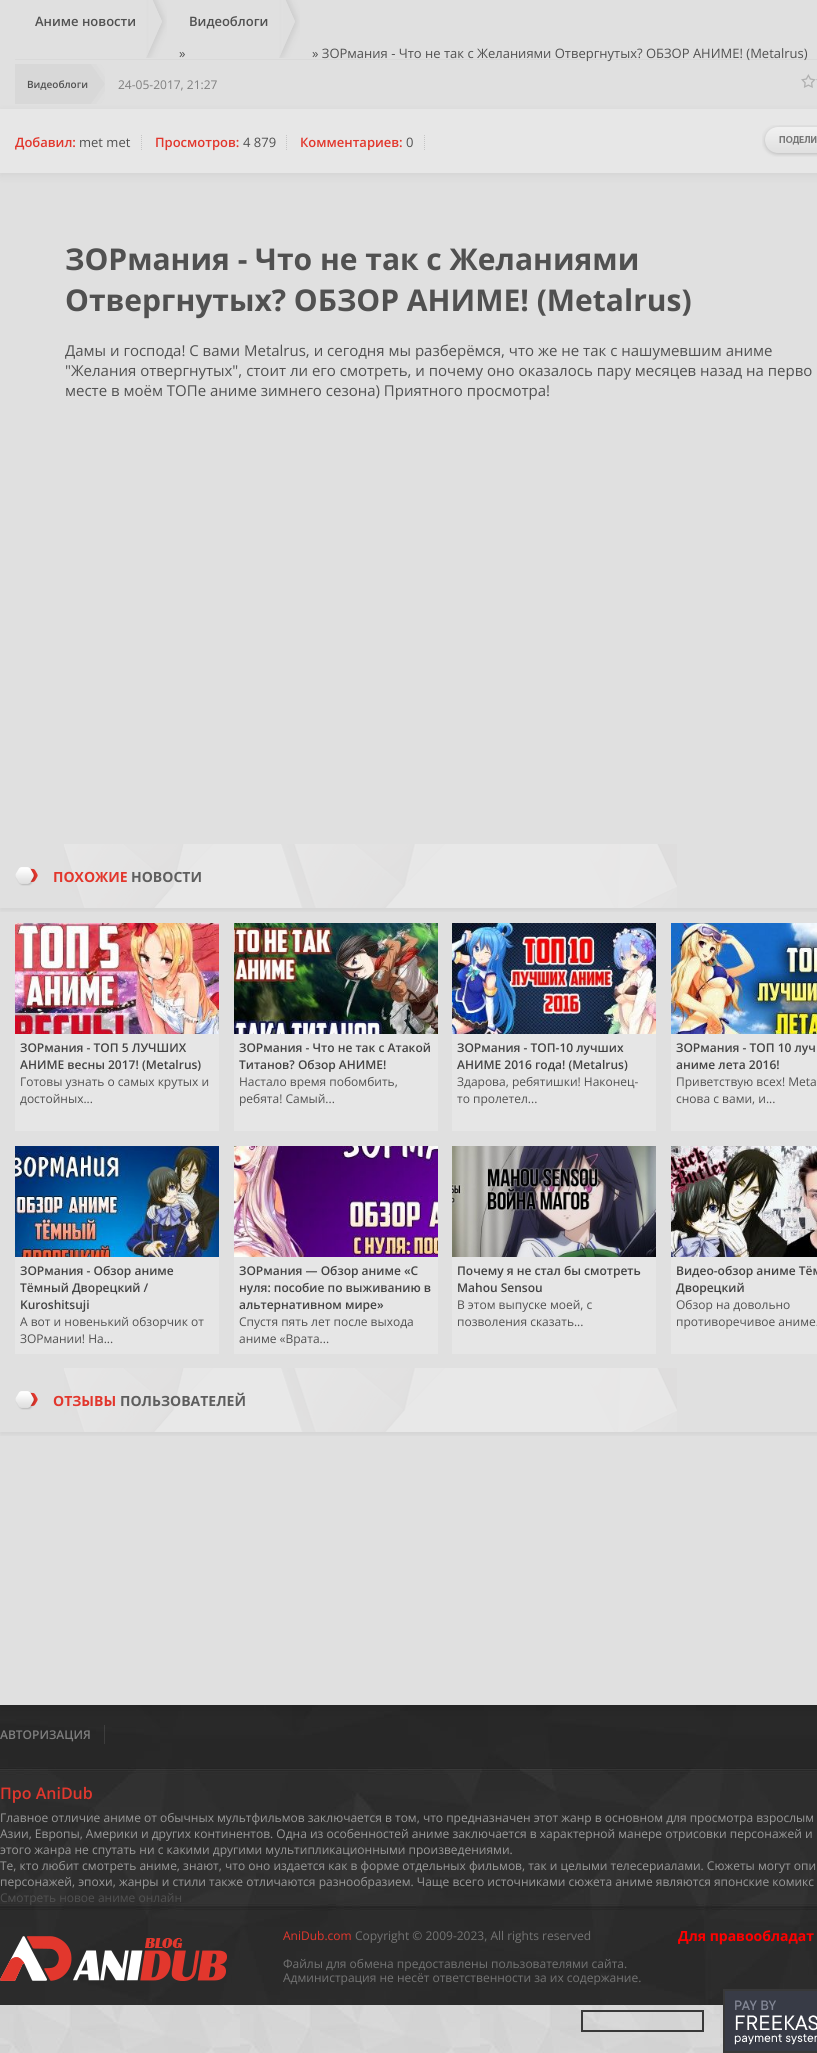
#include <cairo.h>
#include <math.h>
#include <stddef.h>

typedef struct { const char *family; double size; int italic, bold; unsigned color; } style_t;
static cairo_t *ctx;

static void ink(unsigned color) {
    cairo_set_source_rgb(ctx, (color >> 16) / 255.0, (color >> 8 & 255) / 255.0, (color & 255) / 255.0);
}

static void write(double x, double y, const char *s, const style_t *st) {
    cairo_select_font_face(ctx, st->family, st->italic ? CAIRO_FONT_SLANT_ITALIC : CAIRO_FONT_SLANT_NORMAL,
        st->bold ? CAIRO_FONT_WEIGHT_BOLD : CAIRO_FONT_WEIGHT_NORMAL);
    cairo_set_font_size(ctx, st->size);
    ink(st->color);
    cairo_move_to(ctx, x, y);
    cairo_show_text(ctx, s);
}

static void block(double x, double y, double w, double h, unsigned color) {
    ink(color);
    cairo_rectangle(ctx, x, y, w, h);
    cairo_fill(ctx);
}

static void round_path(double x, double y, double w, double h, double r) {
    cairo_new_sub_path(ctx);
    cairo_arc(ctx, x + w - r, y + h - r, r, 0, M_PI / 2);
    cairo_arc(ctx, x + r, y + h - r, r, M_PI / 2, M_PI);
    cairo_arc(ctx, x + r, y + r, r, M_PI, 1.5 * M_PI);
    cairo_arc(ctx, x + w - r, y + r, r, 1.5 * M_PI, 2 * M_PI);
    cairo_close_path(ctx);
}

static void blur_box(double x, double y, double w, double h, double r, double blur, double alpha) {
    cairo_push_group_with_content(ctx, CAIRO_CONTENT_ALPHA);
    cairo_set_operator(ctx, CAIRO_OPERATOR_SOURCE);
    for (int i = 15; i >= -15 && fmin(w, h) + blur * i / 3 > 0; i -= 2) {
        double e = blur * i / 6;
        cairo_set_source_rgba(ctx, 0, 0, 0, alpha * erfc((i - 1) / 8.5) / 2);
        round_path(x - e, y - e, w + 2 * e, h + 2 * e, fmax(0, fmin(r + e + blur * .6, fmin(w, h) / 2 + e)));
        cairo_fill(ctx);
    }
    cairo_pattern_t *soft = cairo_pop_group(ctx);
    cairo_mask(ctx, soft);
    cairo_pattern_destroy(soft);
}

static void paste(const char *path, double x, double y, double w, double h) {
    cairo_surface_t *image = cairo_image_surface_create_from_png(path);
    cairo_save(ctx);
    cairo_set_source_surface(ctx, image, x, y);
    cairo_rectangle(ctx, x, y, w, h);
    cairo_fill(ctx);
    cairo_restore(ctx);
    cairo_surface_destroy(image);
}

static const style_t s1 = {"Open Sans SemiBold", 13, 0, 0, 0x515151};
static const style_t s2 = {"Open Sans", 13, 0, 0, 0x515151};
static const style_t s3 = {"Open Sans SemiBold", 10, 0, 0, 0x515151};
static const style_t s4 = {"Open Sans", 12, 0, 0, 0x7f7f7f};
static const style_t s5 = {"Open Sans SemiBold", 13, 0, 0, 0xe2372d};
static const style_t s6 = {"Open Sans", 30, 0, 1, 0x515151};
static const style_t s7 = {"Open Sans", 15, 0, 0, 0x515151};
static const style_t s8 = {"Open Sans", 14, 0, 1, 0xe2372d};
static const style_t s9 = {"Open Sans", 14, 0, 1, 0x5e5e5e};
static const style_t s10 = {"Open Sans SemiBold", 12, 0, 0, 0x434343};
static const style_t s11 = {"Open Sans", 12, 0, 0, 0x515151};
static const style_t s12 = {"Open Sans SemiBold", 12, 0, 0, 0x7f7f7f};
static const style_t s13 = {"Open Sans SemiBold", 16, 0, 0, 0xe2372d};
static const style_t s14 = {"Open Sans", 12, 0, 0, 0x999999};
static const style_t s15 = {"Open Sans", 12, 0, 0, 0xe2372d};
static const style_t s16 = {"Open Sans", 12, 0, 0, 0x737373};
static const style_t s17 = {"Open Sans", 14, 0, 1, 0xff0000};

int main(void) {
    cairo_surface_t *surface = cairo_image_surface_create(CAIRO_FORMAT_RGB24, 817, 2053);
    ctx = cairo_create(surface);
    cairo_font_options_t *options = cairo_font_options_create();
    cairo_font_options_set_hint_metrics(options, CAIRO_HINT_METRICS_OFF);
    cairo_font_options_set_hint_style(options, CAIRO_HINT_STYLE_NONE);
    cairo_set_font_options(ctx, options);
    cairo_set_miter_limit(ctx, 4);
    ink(0xffffff);
    cairo_paint(ctx);
    paste("pic1.png", 0, 2005, 723, 48);
    paste("pic16.png", 0, 1705, 817, 300);
    ink(0x000000);
    blur_box(0, -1, 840, 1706, 0, 7.5, 0.18);
    block(0, 0, 817, 1705, 0xe0e0e0);
    block(15, 59, 802, 1, 0xd9d9d9);
    paste("pic2.png", 146, 0, 21, 58);
    write(35, 26, "Аниме новости", &s1);
    paste("pic2.png", 279, 0, 21, 58);
    write(189, 26, "Видеоблоги", &s1);
    write(179, 58, "»", &s2);
    write(312, 58, "» ЗОРмания - Что не так с Желаниями Отвергнутых? ОБЗОР АНИМЕ! (Metalrus)", &s2);
    ink(0x000000);
    blur_box(0, 112, 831, 64, 0, 4.5, 0.06);
    block(15, 64, 73, 40, 0xd8d8d8);
    write(27, 88, "Видеоблоги", &s3);
    paste("pic3.png", 88, 64, 17, 40);
    write(118, 89, "24-05-2017, 21:27", &s4);
    paste("pic4.png", 801, 74, 16, 14);
    block(0, 109, 817, 64, 0xe7e7e7);
    cairo_new_path(ctx);
    cairo_move_to(ctx, 141.5, 135);
    cairo_line_to(ctx, 141.5, 150);
    ink(0xc5c5c5);
    cairo_set_line_width(ctx, 1);
    cairo_set_dash(ctx, (double[]){1, 1}, 2, 0);
    cairo_stroke(ctx);
    write(15, 147, "Добавил:", &s5);
    write(79, 147, "met met", &s2);
    cairo_new_path(ctx);
    cairo_move_to(ctx, 286.5, 135);
    cairo_line_to(ctx, 286.5, 150);
    ink(0xc5c5c5);
    cairo_stroke(ctx);
    write(155, 147, "Просмотров:", &s5);
    write(243, 147, "4 879", &s2);
    cairo_new_path(ctx);
    cairo_move_to(ctx, 424.5, 135);
    cairo_line_to(ctx, 424.5, 150);
    ink(0xc5c5c5);
    cairo_stroke(ctx);
    write(300, 147, "Комментариев:", &s5);
    write(406, 147, "0", &s2);
    paste("pic5.png", 762, 125, 55, 32);
    write(65, 270, "ЗОРмания - Что не так с Желаниями", &s6);
    write(65, 311, "Отвергнутых? ОБЗОР АНИМЕ! (Metalrus)", &s6);
    write(65, 356, "Дамы и господа! С вами Metalrus, и сегодня мы разберёмся, что же не так с нашумевшим аниме", &s7);
    write(65, 376, "\"Желания отвергнутых\", стоит ли его смотреть, и почему оно оказалось пару месяцев назад на перво", &s7);
    write(65, 396, "месте в моём ТОПе аниме зимнего сезона) Приятного просмотра!", &s7);
    cairo_save(ctx);
    cairo_rectangle(ctx, 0, 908, 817, 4);
    cairo_clip(ctx);
    ink(0x000000);
    blur_box(0, 847, 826, 64, 0, 3, 0.06);
    cairo_restore(ctx);
    paste("pic6.png", 64, 844, 613, 64);
    paste("pic7.png", 15, 867, 23, 19);
    write(53, 882, "ПОХОЖИЕ", &s8);
    write(131, 882, "НОВОСТИ", &s9);
    block(15, 1034, 204, 97, 0xe6e6e6);
    paste("pic8.png", 15, 923, 204, 111);
    write(20, 1052, "ЗОРмания - ТОП 5 ЛУЧШИХ", &s10);
    write(20, 1069, "АНИМЕ весны 2017! (Metalrus)", &s10);
    write(20, 1086, "Готовы узнать о самых крутых и", &s11);
    write(20, 1103, "достойных...", &s11);
    block(234, 1034, 204, 97, 0xe6e6e6);
    paste("pic9.png", 234, 923, 204, 111);
    write(239, 1052, "ЗОРмания - Что не так с Атакой", &s10);
    write(239, 1069, "Титанов? Обзор АНИМЕ!", &s10);
    write(239, 1086, "Настало время побомбить,", &s11);
    write(239, 1103, "ребята! Самый...", &s11);
    block(452, 1034, 204, 97, 0xe6e6e6);
    paste("pic10.png", 452, 923, 204, 111);
    write(457, 1052, "ЗОРмания - ТОП-10 лучших", &s10);
    write(457, 1069, "АНИМЕ 2016 года! (Metalrus)", &s10);
    write(457, 1086, "Здарова, ребятишки! Наконец-", &s11);
    write(457, 1103, "то пролетел...", &s11);
    block(671, 1034, 146, 97, 0xe6e6e6);
    paste("pic11.png", 671, 923, 146, 111);
    write(676, 1052, "ЗОРмания - ТОП 10 луч", &s10);
    write(676, 1069, "аниме лета 2016!", &s10);
    write(676, 1086, "Приветствую всех! Meta", &s11);
    write(676, 1103, "снова с вами, и...", &s11);
    block(15, 1257, 204, 97, 0xe6e6e6);
    paste("pic12.png", 15, 1146, 204, 111);
    write(20, 1275, "ЗОРмания - Обзор аниме", &s10);
    write(20, 1292, "Тёмный Дворецкий /", &s10);
    write(20, 1309, "Kuroshitsuji", &s10);
    write(20, 1326, "А вот и новенький обзорчик от", &s11);
    write(20, 1343, "ЗОРмании! На...", &s11);
    block(234, 1257, 204, 97, 0xe6e6e6);
    paste("pic13.png", 234, 1146, 204, 111);
    write(239, 1275, "ЗОРмания — Обзор аниме «С", &s10);
    write(239, 1292, "нуля: пособие по выживанию в", &s10);
    write(239, 1309, "альтернативном мире»", &s10);
    write(239, 1326, "Спустя пять лет после выхода", &s11);
    write(239, 1343, "аниме «Врата...", &s11);
    block(452, 1257, 204, 97, 0xe6e6e6);
    paste("pic14.png", 452, 1146, 204, 111);
    write(457, 1275, "Почему я не стал бы смотреть", &s10);
    write(457, 1292, "Mahou Sensou", &s10);
    write(457, 1309, "В этом выпуске моей, с", &s11);
    write(457, 1326, "позволения сказать...", &s11);
    block(671, 1257, 146, 97, 0xe6e6e6);
    paste("pic15.png", 671, 1146, 146, 111);
    write(676, 1275, "Видео-обзор аниме Тём", &s10);
    write(676, 1292, "Дворецкий", &s10);
    write(676, 1309, "Обзор на довольно", &s11);
    write(676, 1326, "противоречивое аниме.", &s11);
    cairo_save(ctx);
    cairo_rectangle(ctx, 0, 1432, 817, 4);
    cairo_clip(ctx);
    ink(0x000000);
    blur_box(0, 1371, 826, 64, 0, 3, 0.06);
    cairo_restore(ctx);
    paste("pic6.png", 64, 1368, 613, 64);
    paste("pic7.png", 15, 1391, 23, 19);
    write(53, 1406, "ОТЗЫВЫ", &s8);
    write(120, 1406, "ПОЛЬЗОВАТЕЛЕЙ", &s9);
    write(0, 1739, "АВТОРИЗАЦИЯ", &s12);
    cairo_set_source_rgba(ctx, 1, 1, 1, 0.1);
    cairo_rectangle(ctx, 104, 1725, 1, 19);
    cairo_fill(ctx);
    write(0, 1799, "Про AniDub", &s13);
    write(0, 1822, "Главное отличие аниме от обычных мультфильмов заключается в том, что предназначен этот жанр в основном для просмотра взрослым", &s14);
    write(0, 1838, "Азии, Европы, Америки и других континентов. Одна из особенностей аниме заключается в характерной манере отрисовки персонажей и", &s14);
    write(0, 1854, "этого жанра не спутать ни с какими другими мультипликационными произведениями.", &s14);
    write(0, 1870, "Те, кто любит смотреть аниме, знают, что оно издается как в форме отдельных фильмов, так и целыми телесериалами. Сюжеты могут опи", &s14);
    write(0, 1886, "персонажей, эпохи, жанры и стили также отличаются разнообразием. Чаще всего источниками сюжета аниме являются японские комикс", &s14);
    write(0, 1902, "Смотреть новое аниме онлайн", &s11);
    paste("pic17.png", 0, 1936, 227, 45);
    write(283, 1940, "AniDub.com", &s15);
    write(355, 1940, "Copyright © 2009-2023, All rights reserved", &s16);
    write(283, 1968, "Файлы для обмена предоставлены пользователями сайта.", &s16);
    write(283, 1982, "Администрация не несёт ответственности за их содержание.", &s16);
    write(678, 1941, "Для правообладат", &s17);
    cairo_rectangle(ctx, 582, 2011, 121, 20);
    ink(0x383838);
    cairo_set_line_width(ctx, 2);
    cairo_set_dash(ctx, NULL, 0, 0);
    cairo_stroke(ctx);
    cairo_rectangle(ctx, 724, 1990, 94, 62);
    cairo_stroke(ctx);
    paste("pic18.png", 725, 1991, 92, 60);
    cairo_surface_write_to_png(surface, "screenshot.png");
    cairo_font_options_destroy(options);
    cairo_destroy(ctx);
    cairo_surface_destroy(surface);
    return 0;
}
